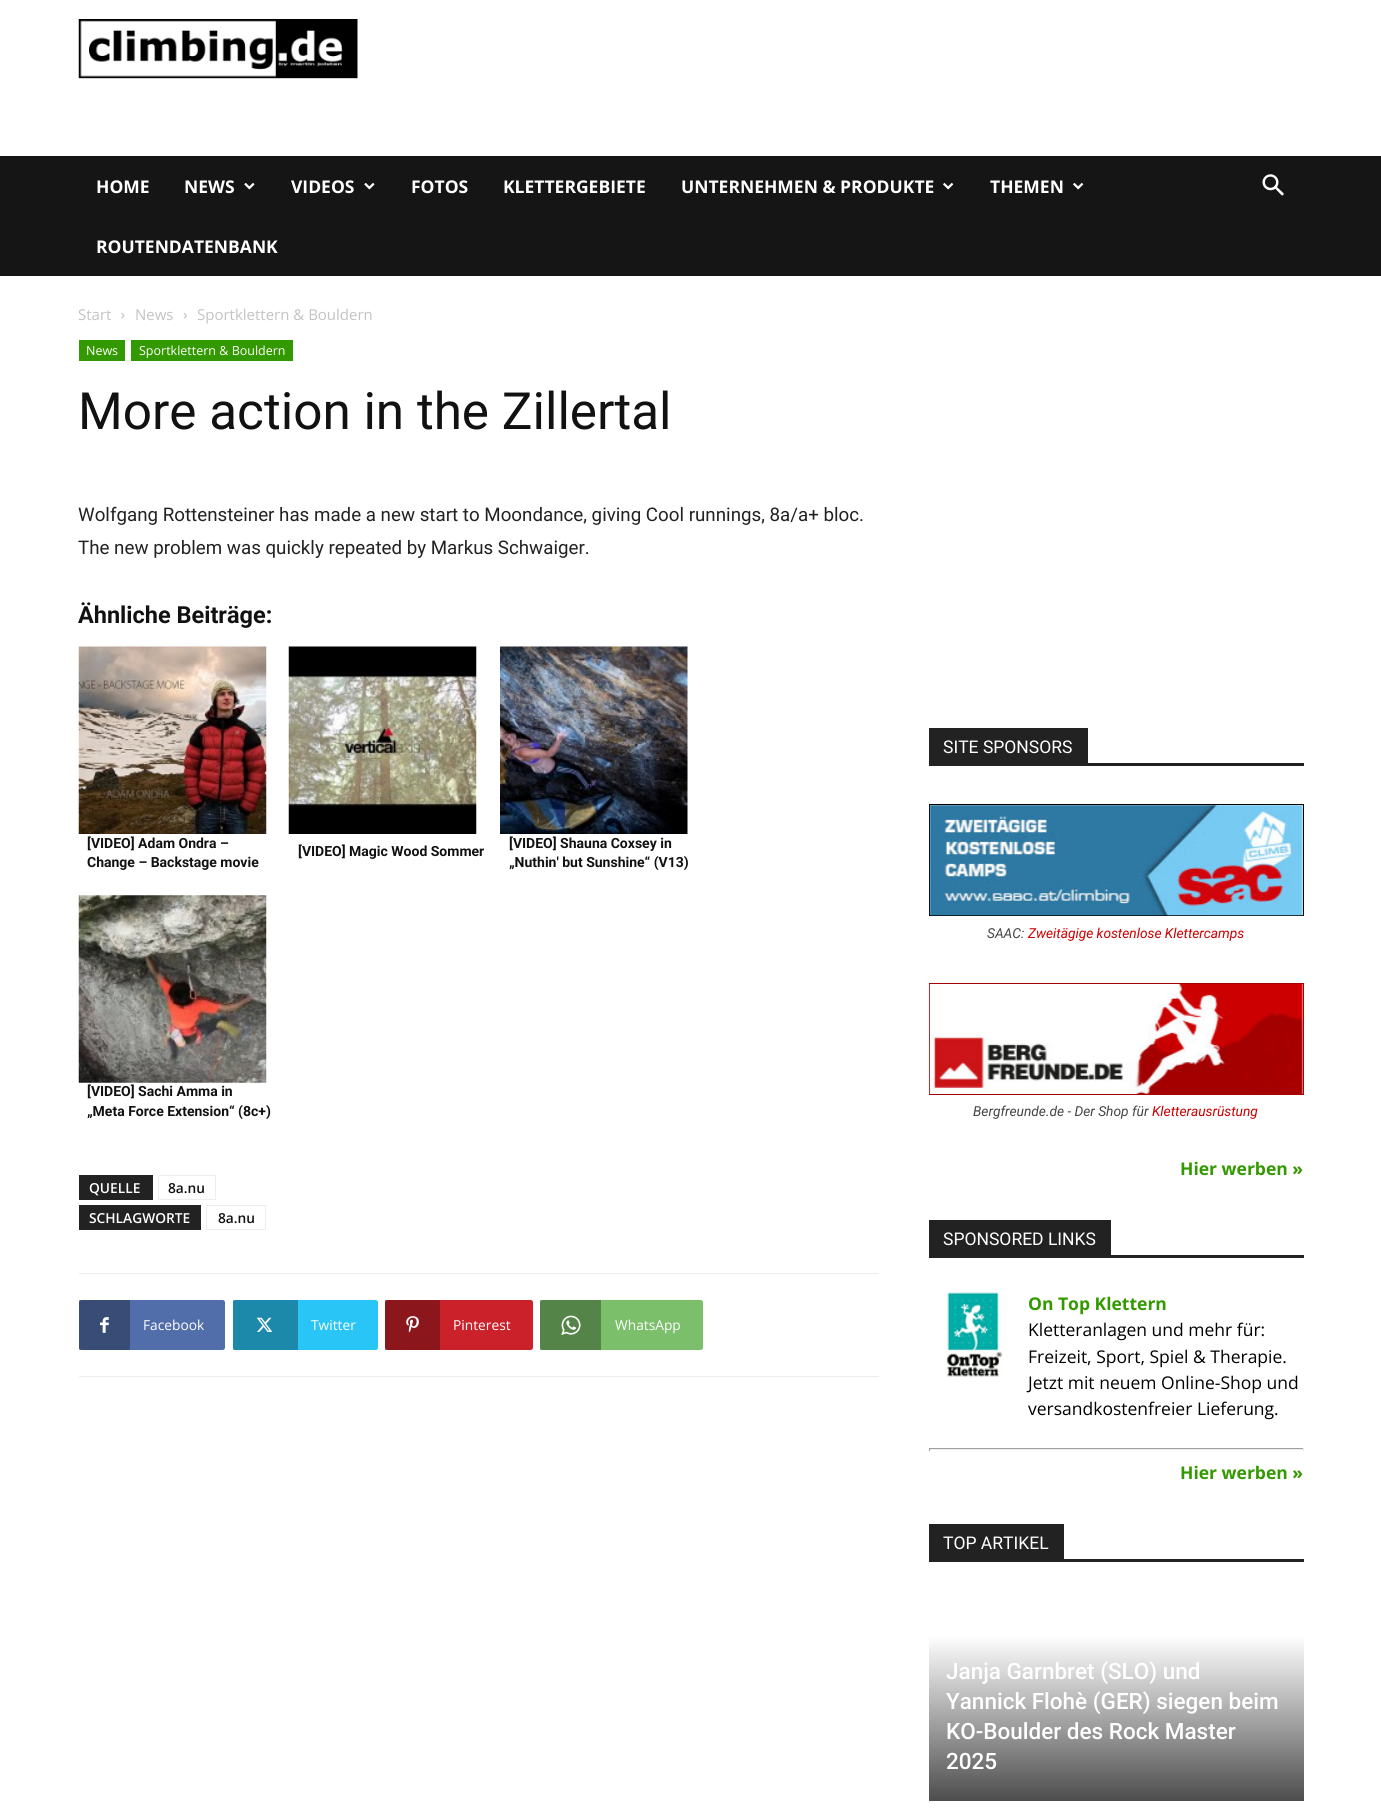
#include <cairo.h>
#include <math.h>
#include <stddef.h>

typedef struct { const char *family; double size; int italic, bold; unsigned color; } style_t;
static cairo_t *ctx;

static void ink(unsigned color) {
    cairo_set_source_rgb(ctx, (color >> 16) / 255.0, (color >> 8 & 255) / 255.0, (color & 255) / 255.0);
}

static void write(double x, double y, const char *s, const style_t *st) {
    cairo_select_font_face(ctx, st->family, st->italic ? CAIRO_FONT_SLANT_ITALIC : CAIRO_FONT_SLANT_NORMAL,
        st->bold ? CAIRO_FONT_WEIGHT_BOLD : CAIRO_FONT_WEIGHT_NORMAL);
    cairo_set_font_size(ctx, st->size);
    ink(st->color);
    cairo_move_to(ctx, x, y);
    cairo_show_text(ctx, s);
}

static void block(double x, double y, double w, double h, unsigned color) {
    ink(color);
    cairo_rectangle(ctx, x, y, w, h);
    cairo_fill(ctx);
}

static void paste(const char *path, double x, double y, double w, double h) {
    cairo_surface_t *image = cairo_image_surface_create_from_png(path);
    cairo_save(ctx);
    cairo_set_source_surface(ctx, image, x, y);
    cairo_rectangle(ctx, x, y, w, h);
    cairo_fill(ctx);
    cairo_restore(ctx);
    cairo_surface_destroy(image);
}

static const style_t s1 = {"Open Sans", 17.5, 0, 1, 0xffffff};
static const style_t s2 = {"Open Sans", 15, 0, 0, 0xc3c3c3};
static const style_t s3 = {"Open Sans", 12.5, 0, 0, 0xffffff};
static const style_t s4 = {"Roboto", 51.25, 0, 0, 0x111111};
static const style_t s5 = {"Roboto", 18.75, 0, 0, 0x222222};
static const style_t s6 = {"Roboto", 23.5, 0, 1, 0x111111};
static const style_t s7 = {"Roboto", 14, 0, 1, 0x111111};
static const style_t s8 = {"Open Sans SemiBold", 13.75, 0, 0, 0xffffff};
static const style_t s9 = {"Open Sans SemiBold", 13.75, 0, 0, 0x111111};
static const style_t s10 = {"Open Sans", 13.75, 0, 0, 0xffffff};
static const style_t s11 = {"Roboto", 17.5, 0, 0, 0xffffff};
static const style_t s12 = {"Roboto", 13.75, 1, 0, 0x444444};
static const style_t s13 = {"Roboto", 13.75, 1, 0, 0xcc0000};
static const style_t s14 = {"Open Sans", 17.5, 0, 1, 0x339900};
static const style_t s15 = {"Open Sans", 17.5, 0, 0, 0x000000};
static const style_t s16 = {"Roboto Medium", 22.5, 0, 0, 0xffffff};

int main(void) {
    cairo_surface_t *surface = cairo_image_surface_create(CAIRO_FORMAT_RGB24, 1381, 1808);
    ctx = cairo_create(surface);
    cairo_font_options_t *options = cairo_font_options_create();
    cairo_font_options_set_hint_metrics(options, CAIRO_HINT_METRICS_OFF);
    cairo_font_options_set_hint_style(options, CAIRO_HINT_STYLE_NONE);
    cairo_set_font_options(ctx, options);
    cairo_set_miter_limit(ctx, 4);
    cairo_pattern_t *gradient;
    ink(0xffffff);
    cairo_paint(ctx);
    paste("pic1.png", 78, 19, 280, 60);
    block(0, 156, 1381, 120, 0x151515);
    write(96, 193, "HOME", &s1);
    write(184, 193, "NEWS", &s1);
    paste("pic2.png", 244, 182, 11, 8);
    write(291, 193, "VIDEOS", &s1);
    paste("pic2.png", 364, 182, 11, 8);
    write(411, 193, "FOTOS", &s1);
    write(503, 193, "KLETTERGEBIETE", &s1);
    write(681, 193, "UNTERNEHMEN & PRODUKTE", &s1);
    paste("pic3.png", 943, 182, 11, 8);
    write(990, 193, "THEMEN", &s1);
    paste("pic3.png", 1073, 182, 11, 8);
    write(96, 253, "ROUTENDATENBANK", &s1);
    paste("pic4.png", 1262, 174, 22, 22);
    write(78, 320, "Start", &s2);
    paste("pic5.png", 121, 312, 4, 7);
    write(135, 320, "News", &s2);
    paste("pic6.png", 183, 312, 4, 7);
    write(197, 320, "Sportklettern & Bouldern", &s2);
    block(79, 340, 46, 21, 0x339900);
    write(86, 355, "News", &s3);
    block(131, 340, 162, 21, 0x339900);
    write(139, 355, "Sportklettern & Bouldern", &s3);
    write(78, 429, "More action in the Zillertal", &s4);
    write(78, 521, "Wolfgang Rottensteiner has made a new start to Moondance, giving Cool runnings, 8a/a+ bloc.", &s5);
    write(78, 554, "The new problem was quickly repeated by Markus Schwaiger.", &s5);
    write(78, 623, "Ähnliche Beiträge:", &s6);
    paste("pic7.png", 78, 646, 189, 188);
    write(87, 848, "[VIDEO] Adam Ondra –", &s7);
    write(87, 867, "Change – Backstage movie", &s7);
    paste("pic8.png", 288, 646, 189, 188);
    write(298, 856, "[VIDEO] Magic Wood Sommer", &s7);
    paste("pic9.png", 500, 646, 188, 188);
    write(509, 848, "[VIDEO] Shauna Coxsey in", &s7);
    write(509, 867, "„Nuthin' but Sunshine“ (V13)", &s7);
    paste("pic10.png", 78, 895, 189, 188);
    write(87, 1096, "[VIDEO] Sachi Amma in", &s7);
    write(87, 1116, "„Meta Force Extension“ (8c+)", &s7);
    block(79, 1175, 74, 25, 0x222222);
    write(89, 1193, "QUELLE", &s8);
    cairo_rectangle(ctx, 158.5, 1175.5, 57, 24);
    ink(0xededed);
    cairo_set_line_width(ctx, 1);
    cairo_stroke(ctx);
    write(168, 1193, "8a.nu", &s9);
    block(79, 1205, 122, 25, 0x222222);
    write(89, 1223, "SCHLAGWORTE", &s8);
    cairo_rectangle(ctx, 206.5, 1205.5, 59, 24);
    ink(0xededed);
    cairo_stroke(ctx);
    write(218, 1223, "8a.nu", &s9);
    block(79, 1273, 800, 1, 0xededed);
    block(79, 1376, 800, 1, 0xededed);
    ink(0x516eab);
    cairo_new_path(ctx);
    cairo_move_to(ctx, 123, 1300);
    cairo_line_to(ctx, 222.5, 1300);
    cairo_curve_to(ctx, 224, 1300, 225, 1301, 225, 1302.5);
    cairo_line_to(ctx, 225, 1347.5);
    cairo_curve_to(ctx, 225, 1349, 224, 1350, 222.5, 1350);
    cairo_line_to(ctx, 123, 1350);
    cairo_close_path(ctx);
    cairo_fill(ctx);
    cairo_new_path(ctx);
    cairo_move_to(ctx, 81.5, 1300);
    cairo_line_to(ctx, 130, 1300);
    cairo_line_to(ctx, 130, 1350);
    cairo_line_to(ctx, 81.5, 1350);
    cairo_curve_to(ctx, 80, 1350, 79, 1349, 79, 1347.5);
    cairo_line_to(ctx, 79, 1302.5);
    cairo_curve_to(ctx, 79, 1301, 80, 1300, 81.5, 1300);
    cairo_close_path(ctx);
    cairo_fill(ctx);
    cairo_set_source_rgba(ctx, 0, 0, 0, 0.31);
    cairo_rectangle(ctx, 79, 1300, 51, 50);
    cairo_fill(ctx);
    paste("pic11.png", 100, 1317, 9, 16);
    write(143, 1330, "Facebook", &s10);
    ink(0x29c5f6);
    cairo_new_path(ctx);
    cairo_move_to(ctx, 290, 1300);
    cairo_line_to(ctx, 375.5, 1300);
    cairo_curve_to(ctx, 377, 1300, 378, 1301, 378, 1302.5);
    cairo_line_to(ctx, 378, 1347.5);
    cairo_curve_to(ctx, 378, 1349, 377, 1350, 375.5, 1350);
    cairo_line_to(ctx, 290, 1350);
    cairo_close_path(ctx);
    cairo_fill(ctx);
    cairo_new_path(ctx);
    cairo_move_to(ctx, 235.5, 1300);
    cairo_line_to(ctx, 298, 1300);
    cairo_line_to(ctx, 298, 1350);
    cairo_line_to(ctx, 235.5, 1350);
    cairo_curve_to(ctx, 234, 1350, 233, 1349, 233, 1347.5);
    cairo_line_to(ctx, 233, 1302.5);
    cairo_curve_to(ctx, 233, 1301, 234, 1300, 235.5, 1300);
    cairo_close_path(ctx);
    cairo_fill(ctx);
    cairo_set_source_rgba(ctx, 0, 0, 0, 0.31);
    cairo_rectangle(ctx, 233, 1300, 65, 50);
    cairo_fill(ctx);
    paste("pic12.png", 256, 1317, 17, 15);
    write(311, 1330, "Twitter", &s10);
    ink(0xca212a);
    cairo_new_path(ctx);
    cairo_move_to(ctx, 433, 1300);
    cairo_line_to(ctx, 530.5, 1300);
    cairo_curve_to(ctx, 532, 1300, 533, 1301, 533, 1302.5);
    cairo_line_to(ctx, 533, 1347.5);
    cairo_curve_to(ctx, 533, 1349, 532, 1350, 530.5, 1350);
    cairo_line_to(ctx, 433, 1350);
    cairo_close_path(ctx);
    cairo_fill(ctx);
    cairo_new_path(ctx);
    cairo_move_to(ctx, 387.5, 1300);
    cairo_line_to(ctx, 440, 1300);
    cairo_line_to(ctx, 440, 1350);
    cairo_line_to(ctx, 387.5, 1350);
    cairo_curve_to(ctx, 386, 1350, 385, 1349, 385, 1347.5);
    cairo_line_to(ctx, 385, 1302.5);
    cairo_curve_to(ctx, 385, 1301, 386, 1300, 387.5, 1300);
    cairo_close_path(ctx);
    cairo_fill(ctx);
    cairo_set_source_rgba(ctx, 0, 0, 0, 0.31);
    cairo_rectangle(ctx, 385, 1300, 55, 50);
    cairo_fill(ctx);
    paste("pic13.png", 406, 1316, 13, 17);
    write(453, 1330, "Pinterest", &s10);
    ink(0x7bbf6a);
    cairo_new_path(ctx);
    cairo_move_to(ctx, 594, 1300);
    cairo_line_to(ctx, 700.5, 1300);
    cairo_curve_to(ctx, 702, 1300, 703, 1301, 703, 1302.5);
    cairo_line_to(ctx, 703, 1347.5);
    cairo_curve_to(ctx, 703, 1349, 702, 1350, 700.5, 1350);
    cairo_line_to(ctx, 594, 1350);
    cairo_close_path(ctx);
    cairo_fill(ctx);
    cairo_new_path(ctx);
    cairo_move_to(ctx, 542.5, 1300);
    cairo_line_to(ctx, 601, 1300);
    cairo_line_to(ctx, 601, 1350);
    cairo_line_to(ctx, 542.5, 1350);
    cairo_curve_to(ctx, 541, 1350, 540, 1349, 540, 1347.5);
    cairo_line_to(ctx, 540, 1302.5);
    cairo_curve_to(ctx, 540, 1301, 541, 1300, 542.5, 1300);
    cairo_close_path(ctx);
    cairo_fill(ctx);
    cairo_set_source_rgba(ctx, 0, 0, 0, 0.31);
    cairo_rectangle(ctx, 540, 1300, 61, 50);
    cairo_fill(ctx);
    paste("pic14.png", 561, 1315, 20, 20);
    write(615, 1330, "WhatsApp", &s10);
    block(929, 763, 375, 3, 0x222222);
    block(929, 728, 159, 35, 0x222222);
    write(943, 753, "SITE SPONSORS", &s11);
    cairo_rectangle(ctx, 929.5, 804.5, 374, 111);
    ink(0x000000);
    cairo_stroke(ctx);
    paste("pic15.png", 929, 805, 374, 111);
    write(987, 938, "SAAC:", &s12);
    write(1028, 938, "Zweitägige kostenlose Klettercamps", &s13);
    cairo_rectangle(ctx, 929.5, 983.5, 374, 111);
    ink(0xaa0001);
    cairo_stroke(ctx);
    paste("pic16.png", 929, 984, 374, 110);
    write(973, 1116, "Bergfreunde.de - Der Shop für", &s12);
    write(1152, 1116, "Kletterausrüstung", &s13);
    write(1180, 1175, "Hier werben »", &s14);
    block(929, 1255, 375, 3, 0x222222);
    block(929, 1220, 182, 35, 0x222222);
    write(943, 1245, "SPONSORED LINKS", &s11);
    paste("pic17.png", 946, 1292, 57, 85);
    write(1028, 1310, "On Top Klettern", &s14);
    write(1028, 1336, "Kletteranlagen und mehr für:", &s15);
    write(1028, 1363, "Freizeit, Sport, Spiel & Therapie.", &s15);
    write(1028, 1389, "Jetzt mit neuem Online-Shop und", &s15);
    write(1028, 1415, "versandkostenfreier Lieferung.", &s15);
    block(929, 1448, 375, 1, 0x9f9f9f);
    block(1303, 1448, 1, 3, 0xeeeeee);
    block(929, 1449, 375, 1, 0xeeeeee);
    block(929, 1448, 1, 3, 0x9f9f9f);
    write(1180, 1479, "Hier werben »", &s14);
    block(929, 1559, 375, 3, 0x222222);
    block(929, 1524, 135, 35, 0x222222);
    write(943, 1549, "TOP ARTIKEL", &s11);
    gradient = cairo_pattern_create_linear(1116, 1635, 1116, 1801);
    cairo_pattern_add_color_stop_rgba(gradient, 0, 1, 1, 1, 1);
    cairo_pattern_add_color_stop_rgba(gradient, 1, 0.302, 0.302, 0.302, 1);
    cairo_set_source(ctx, gradient);
    cairo_pattern_destroy(gradient);
    cairo_rectangle(ctx, 929, 1637, 375, 164);
    cairo_fill(ctx);
    write(946, 1679, "Janja Garnbret (SLO) und", &s16);
    write(946, 1709, "Yannick Flohè (GER) siegen beim", &s16);
    write(946, 1739, "KO-Boulder des Rock Master", &s16);
    write(946, 1769, "2025", &s16);
    cairo_surface_write_to_png(surface, "screenshot.png");
    cairo_font_options_destroy(options);
    cairo_destroy(ctx);
    cairo_surface_destroy(surface);
    return 0;
}
